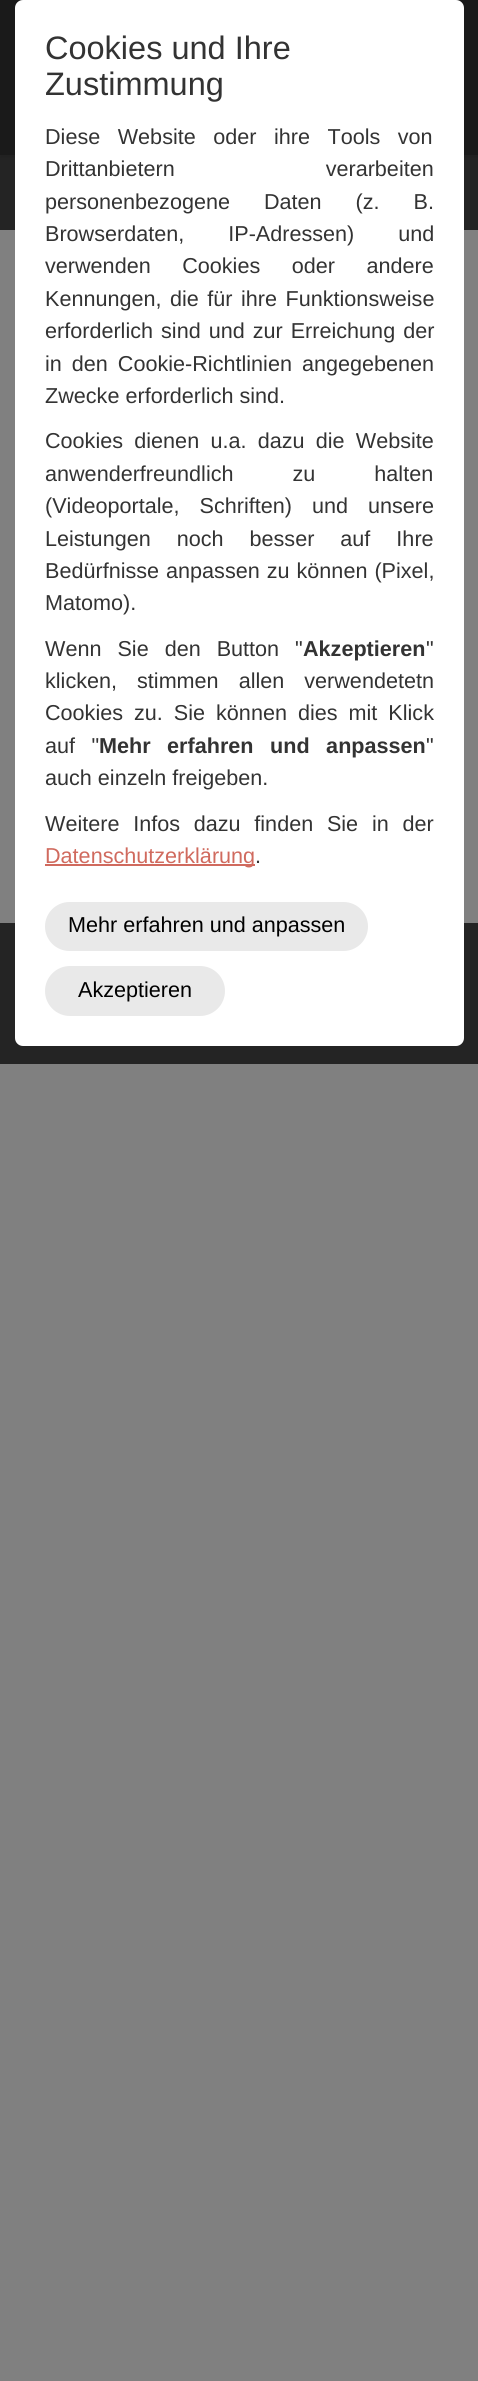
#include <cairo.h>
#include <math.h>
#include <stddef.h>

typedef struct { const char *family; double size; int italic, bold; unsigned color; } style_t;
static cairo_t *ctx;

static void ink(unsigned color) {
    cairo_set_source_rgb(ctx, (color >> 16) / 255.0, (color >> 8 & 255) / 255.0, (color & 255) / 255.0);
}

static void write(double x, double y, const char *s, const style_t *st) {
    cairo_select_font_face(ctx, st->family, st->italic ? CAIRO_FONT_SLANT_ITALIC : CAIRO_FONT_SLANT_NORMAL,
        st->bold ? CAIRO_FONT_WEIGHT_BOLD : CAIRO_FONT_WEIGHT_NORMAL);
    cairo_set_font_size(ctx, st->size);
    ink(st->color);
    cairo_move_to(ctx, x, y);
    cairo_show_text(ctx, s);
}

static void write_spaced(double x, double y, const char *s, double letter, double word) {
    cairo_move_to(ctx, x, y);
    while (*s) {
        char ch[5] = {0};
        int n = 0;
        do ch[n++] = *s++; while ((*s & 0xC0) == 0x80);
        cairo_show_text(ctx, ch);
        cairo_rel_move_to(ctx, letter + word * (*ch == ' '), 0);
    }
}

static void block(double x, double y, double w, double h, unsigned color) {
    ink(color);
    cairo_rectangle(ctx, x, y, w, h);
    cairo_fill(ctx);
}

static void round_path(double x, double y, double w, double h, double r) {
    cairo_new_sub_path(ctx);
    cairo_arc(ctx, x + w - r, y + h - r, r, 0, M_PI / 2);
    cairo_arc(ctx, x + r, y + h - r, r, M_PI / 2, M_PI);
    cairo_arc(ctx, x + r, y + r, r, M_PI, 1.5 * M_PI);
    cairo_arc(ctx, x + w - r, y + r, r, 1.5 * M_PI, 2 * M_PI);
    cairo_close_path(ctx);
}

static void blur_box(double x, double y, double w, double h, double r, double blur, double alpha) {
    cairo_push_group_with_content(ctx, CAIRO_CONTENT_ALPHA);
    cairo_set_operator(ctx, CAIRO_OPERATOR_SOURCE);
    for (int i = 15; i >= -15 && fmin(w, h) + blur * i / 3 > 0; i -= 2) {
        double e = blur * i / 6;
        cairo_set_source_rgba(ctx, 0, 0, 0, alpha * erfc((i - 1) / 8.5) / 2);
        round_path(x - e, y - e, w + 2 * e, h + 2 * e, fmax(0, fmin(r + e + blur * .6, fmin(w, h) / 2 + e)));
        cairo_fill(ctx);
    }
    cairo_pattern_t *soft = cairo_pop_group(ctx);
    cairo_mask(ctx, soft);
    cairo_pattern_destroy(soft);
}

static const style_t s1 = {"Liberation Sans", 32.5, 0, 0, 0x333333};
static const style_t s2 = {"Liberation Sans", 21.6, 0, 0, 0x333333};
static const style_t s3 = {"Liberation Sans", 21.6, 0, 1, 0x333333};
static const style_t s4 = {"Liberation Sans", 21.6, 0, 0, 0xd06a5e};
static const style_t s5 = {"Liberation Sans", 21.6, 0, 0, 0x000000};

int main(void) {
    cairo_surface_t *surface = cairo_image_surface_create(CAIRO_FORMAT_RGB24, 478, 2381);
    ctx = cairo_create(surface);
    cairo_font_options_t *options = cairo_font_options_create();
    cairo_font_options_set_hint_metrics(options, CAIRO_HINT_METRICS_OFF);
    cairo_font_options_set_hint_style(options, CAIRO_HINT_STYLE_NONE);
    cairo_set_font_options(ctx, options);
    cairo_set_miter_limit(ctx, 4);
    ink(0x808080);
    cairo_paint(ctx);
    block(0, 155, 478, 75, 0x242424);
    ink(0x000000);
    blur_box(0, 3, 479, 155, 0, 1.5, 0.1);
    block(0, 0, 478, 155, 0x1a1a1a);
    block(0, 923, 478, 141, 0x242424);
    ink(0xffffff);
    round_path(15, 0, 449, 1046, 8);
    cairo_fill(ctx);
    write(45, 59, "Cookies und Ihre", &s1);
    write(45, 95, "Zustimmung", &s1);
    cairo_set_font_size(ctx, 21.6);
    write_spaced(45, 144, "Diese Website oder ihre Tools von", 0, 11.5);
    write_spaced(45, 176, "Drittanbietern verarbeiten", 0, 145);
    write_spaced(45, 209, "personenbezogene Daten (z. B.", 0, 28);
    write_spaced(45, 241, "Browserdaten, IP-Adressen) und", 0, 38);
    write_spaced(45, 273, "verwenden Cookies oder andere", 0, 25.5);
    write_spaced(45, 306, "Kennungen, die für ihre Funktionsweise", 0, 2.5);
    write_spaced(45, 338, "erforderlich sind und zur Erreichung der", 0, 2);
    write_spaced(45, 371, "in den Cookie-Richtlinien angegebenen", 0, 4);
    write(45, 403, "Zwecke erforderlich sind.", &s2);
    write_spaced(45, 448, "Cookies dienen u.a. dazu die Website", 0, 5.25);
    write_spaced(45, 481, "anwenderfreundlich zu halten", 0, 53);
    write_spaced(45, 513, "(Videoportale, Schriften) und unsere", 0, 14);
    write_spaced(45, 546, "Leistungen noch besser auf Ihre", 0, 20);
    write_spaced(45, 578, "Bedürfnisse anpassen zu können (Pixel,", 0, 1);
    write(45, 610, "Matomo).", &s2);
    write_spaced(45, 656, "Wenn Sie den Button \"", 0, 10);
    write(303, 656, "Akzeptieren", &s3);
    write(426, 656, "\"", &s2);
    write_spaced(45, 688, "klicken, stimmen allen verwendetetn", 0, 14);
    write_spaced(45, 720, "Cookies zu. Sie können dies mit Klick", 0, 5);
    write_spaced(45, 753, "auf \"", 0, 10.5);
    cairo_select_font_face(ctx, "Liberation Sans", CAIRO_FONT_SLANT_NORMAL, CAIRO_FONT_WEIGHT_BOLD);
    write_spaced(99, 753, "Mehr erfahren und anpassen", 0, 10.5);
    write(426, 753, "\"", &s2);
    write(45, 785, "auch einzeln freigeben.", &s2);
    write_spaced(45, 831, "Weitere Infos dazu finden Sie in der", 0, 7.75);
    block(45, 864, 210, 2, 0xd06a5e);
    write(45, 863, "Datenschutzerklärung", &s4);
    write(255, 863, ".", &s2);
    ink(0xe9e9e9);
    round_path(45, 902, 323, 49, 24.5);
    cairo_fill(ctx);
    write(68, 932, "Mehr erfahren und anpassen", &s5);
    ink(0xe9e9e9);
    round_path(45, 966, 180, 50, 25);
    cairo_fill(ctx);
    write(78, 997, "Akzeptieren", &s5);
    cairo_surface_write_to_png(surface, "screenshot.png");
    cairo_font_options_destroy(options);
    cairo_destroy(ctx);
    cairo_surface_destroy(surface);
    return 0;
}
